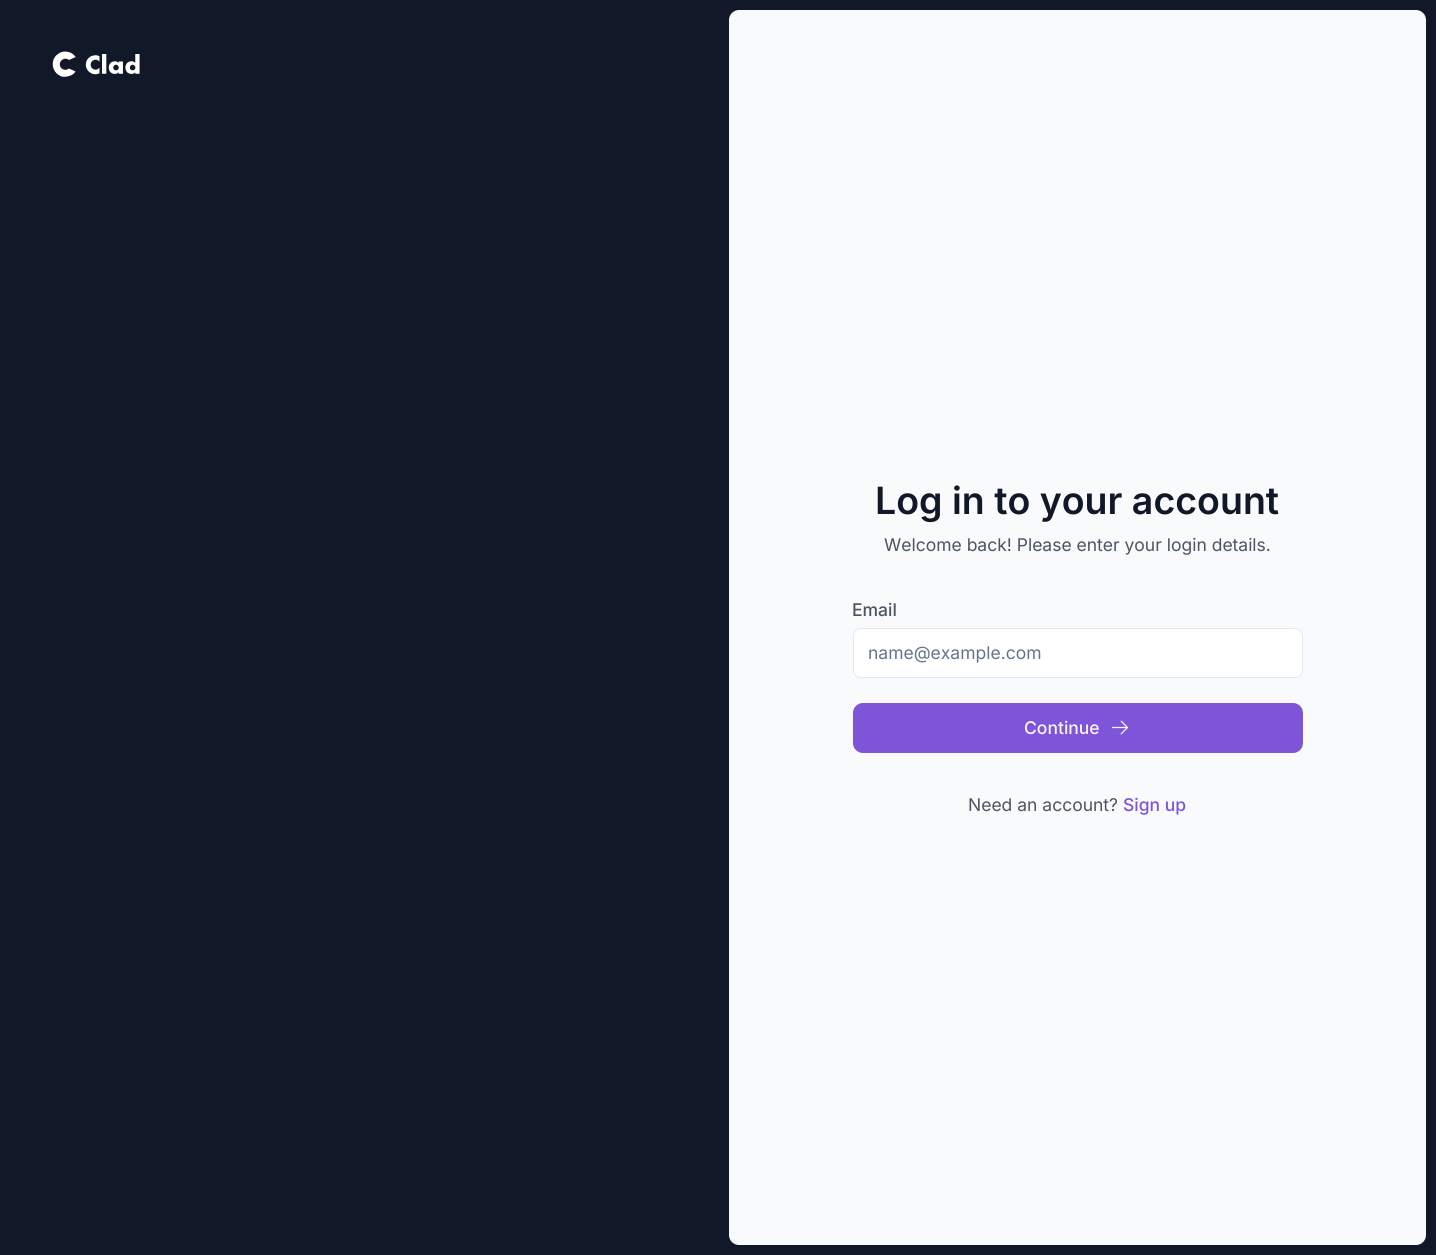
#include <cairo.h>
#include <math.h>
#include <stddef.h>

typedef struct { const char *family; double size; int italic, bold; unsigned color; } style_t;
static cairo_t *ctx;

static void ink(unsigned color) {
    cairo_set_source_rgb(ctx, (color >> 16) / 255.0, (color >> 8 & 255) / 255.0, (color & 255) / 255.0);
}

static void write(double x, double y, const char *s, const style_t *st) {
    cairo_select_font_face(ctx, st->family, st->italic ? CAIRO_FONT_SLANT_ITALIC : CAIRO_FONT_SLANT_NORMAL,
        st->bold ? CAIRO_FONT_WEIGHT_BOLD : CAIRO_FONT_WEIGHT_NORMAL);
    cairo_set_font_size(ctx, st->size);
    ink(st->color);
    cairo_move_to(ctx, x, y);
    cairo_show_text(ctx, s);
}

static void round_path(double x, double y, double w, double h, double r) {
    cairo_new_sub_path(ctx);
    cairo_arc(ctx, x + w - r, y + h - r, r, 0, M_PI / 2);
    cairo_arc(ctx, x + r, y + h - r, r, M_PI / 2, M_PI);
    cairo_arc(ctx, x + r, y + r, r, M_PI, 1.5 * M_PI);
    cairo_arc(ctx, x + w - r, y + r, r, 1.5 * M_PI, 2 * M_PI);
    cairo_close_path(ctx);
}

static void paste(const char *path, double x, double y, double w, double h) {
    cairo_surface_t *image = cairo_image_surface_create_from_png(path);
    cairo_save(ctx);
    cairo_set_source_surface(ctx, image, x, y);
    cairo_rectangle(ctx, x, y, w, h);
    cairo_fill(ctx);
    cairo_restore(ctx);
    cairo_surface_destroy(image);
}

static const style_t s1 = {"Inter SemiBold", 37.5, 0, 0, 0x111827};
static const style_t s2 = {"Inter", 17.5, 0, 0, 0x4b5563};
static const style_t s3 = {"Inter Medium", 17.5, 0, 0, 0x4b5563};
static const style_t s4 = {"Inter", 17.5, 0, 0, 0x64748b};
static const style_t s5 = {"Inter Medium", 17.5, 0, 0, 0xf9f5ff};
static const style_t s6 = {"Inter Medium", 17.5, 0, 0, 0x7e55d8};

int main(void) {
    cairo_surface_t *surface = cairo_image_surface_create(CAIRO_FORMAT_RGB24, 1436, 1255);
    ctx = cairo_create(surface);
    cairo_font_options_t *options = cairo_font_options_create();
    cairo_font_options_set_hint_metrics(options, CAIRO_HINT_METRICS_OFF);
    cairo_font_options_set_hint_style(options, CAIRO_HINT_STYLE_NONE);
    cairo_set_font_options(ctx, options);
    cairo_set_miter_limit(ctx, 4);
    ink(0x111827);
    cairo_paint(ctx);
    paste("pic1.png", 52, 51, 88, 26);
    ink(0xf9fafb);
    round_path(724, 5, 707, 1245, 15);
    cairo_fill_preserve(ctx);
    ink(0x111827);
    cairo_set_line_width(ctx, 10);
    cairo_stroke(ctx);
    write(875, 514, "Log in to your account", &s1);
    write(884, 551, "Welcome back! Please enter your login details.", &s2);
    write(852, 616, "Email", &s3);
    ink(0xffffff);
    round_path(853.5, 628.5, 449, 49, 7.5);
    cairo_fill_preserve(ctx);
    ink(0xe2e8f0);
    cairo_set_line_width(ctx, 1);
    cairo_stroke(ctx);
    write(868, 659, "name@example.com", &s4);
    ink(0x7e55d8);
    round_path(853, 703, 450, 50, 10);
    cairo_fill(ctx);
    write(1024, 734, "Continue", &s5);
    paste("pic2.png", 1111, 720, 18, 15);
    write(968, 811, "Need an account?", &s2);
    write(1123, 811, "Sign up", &s6);
    cairo_surface_write_to_png(surface, "screenshot.png");
    cairo_font_options_destroy(options);
    cairo_destroy(ctx);
    cairo_surface_destroy(surface);
    return 0;
}
